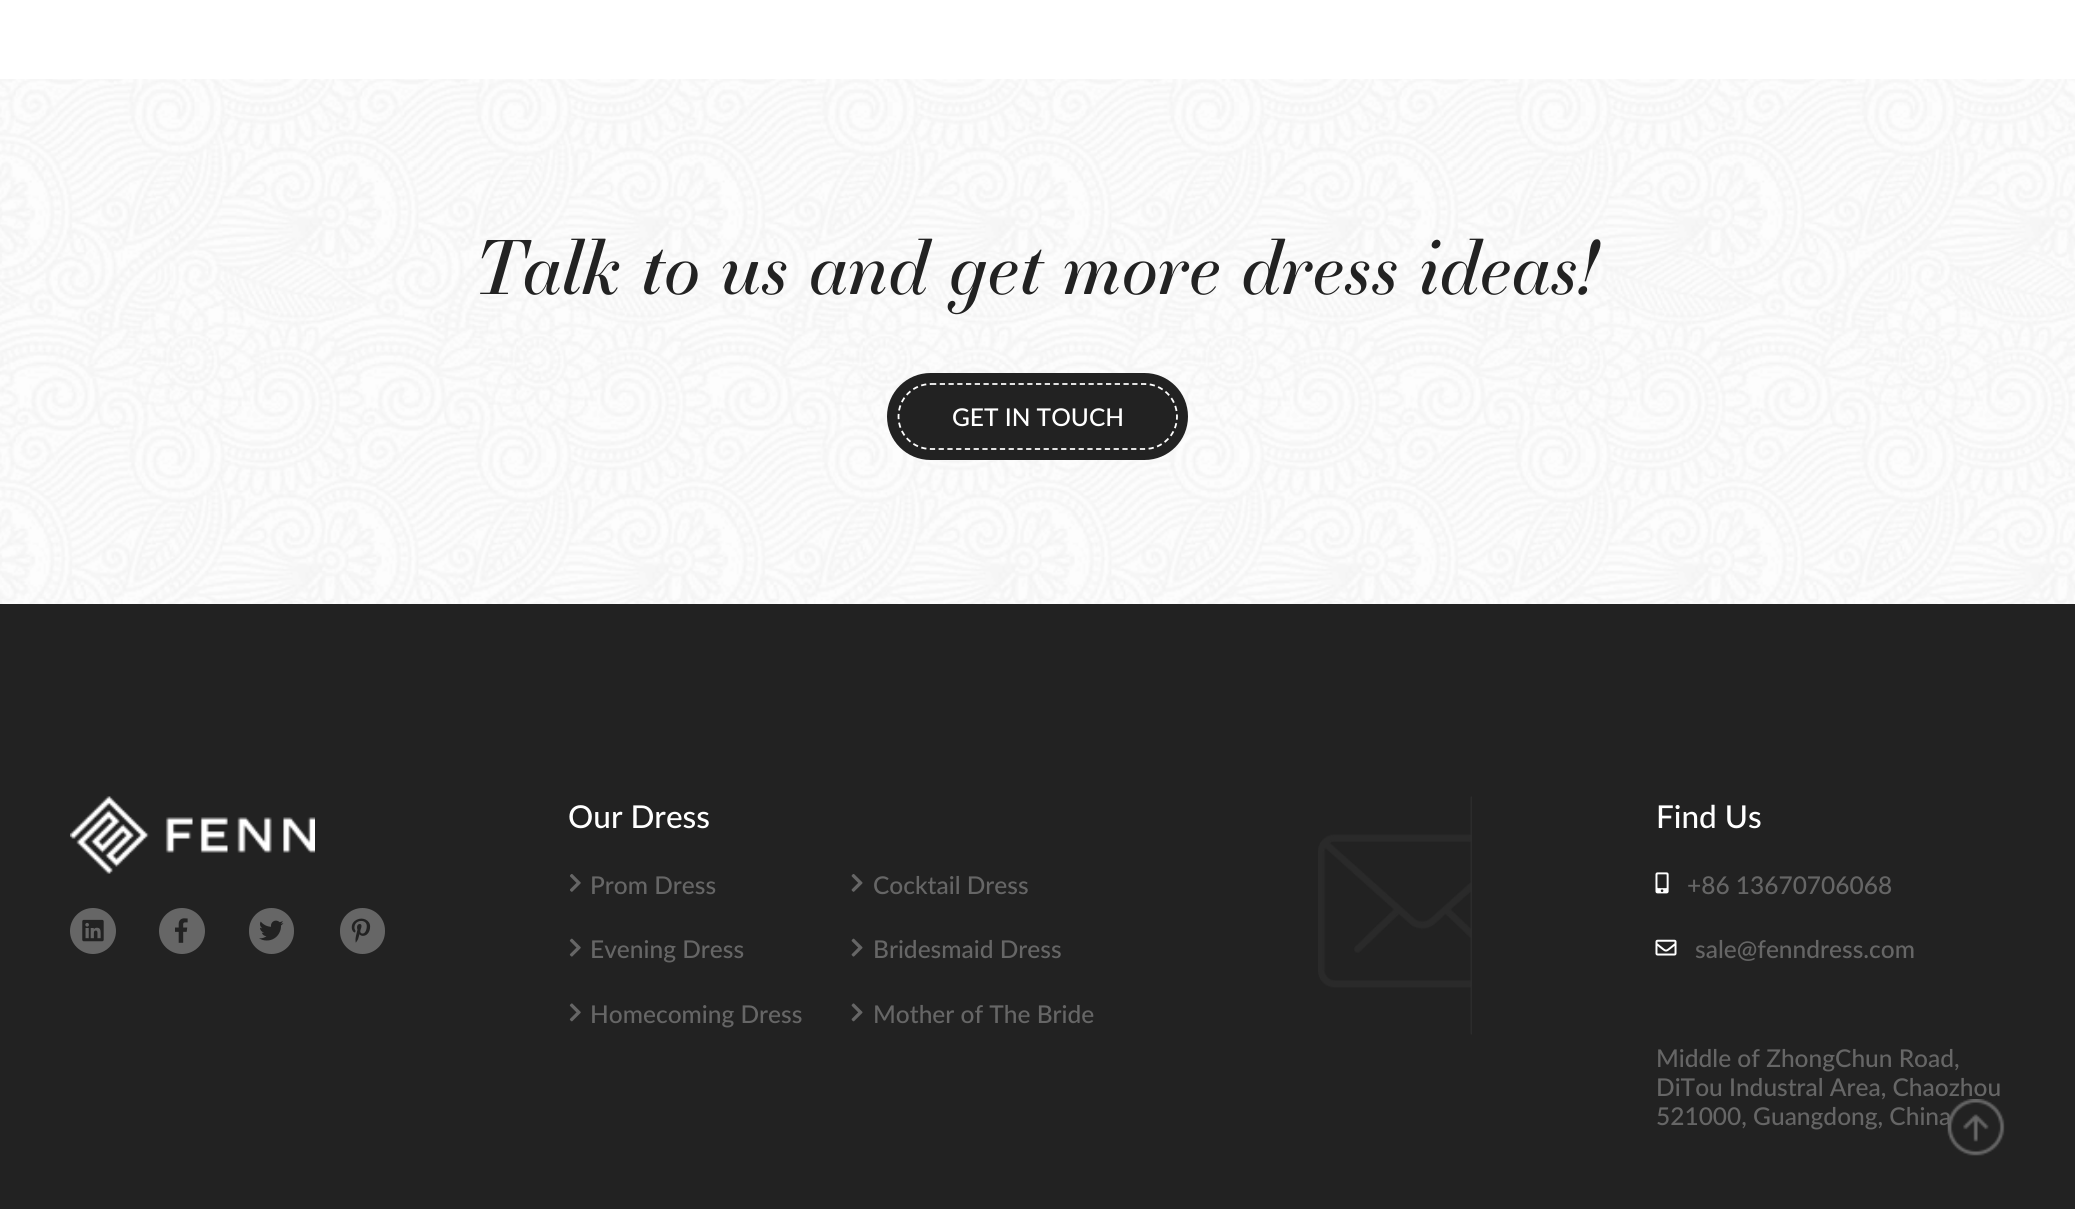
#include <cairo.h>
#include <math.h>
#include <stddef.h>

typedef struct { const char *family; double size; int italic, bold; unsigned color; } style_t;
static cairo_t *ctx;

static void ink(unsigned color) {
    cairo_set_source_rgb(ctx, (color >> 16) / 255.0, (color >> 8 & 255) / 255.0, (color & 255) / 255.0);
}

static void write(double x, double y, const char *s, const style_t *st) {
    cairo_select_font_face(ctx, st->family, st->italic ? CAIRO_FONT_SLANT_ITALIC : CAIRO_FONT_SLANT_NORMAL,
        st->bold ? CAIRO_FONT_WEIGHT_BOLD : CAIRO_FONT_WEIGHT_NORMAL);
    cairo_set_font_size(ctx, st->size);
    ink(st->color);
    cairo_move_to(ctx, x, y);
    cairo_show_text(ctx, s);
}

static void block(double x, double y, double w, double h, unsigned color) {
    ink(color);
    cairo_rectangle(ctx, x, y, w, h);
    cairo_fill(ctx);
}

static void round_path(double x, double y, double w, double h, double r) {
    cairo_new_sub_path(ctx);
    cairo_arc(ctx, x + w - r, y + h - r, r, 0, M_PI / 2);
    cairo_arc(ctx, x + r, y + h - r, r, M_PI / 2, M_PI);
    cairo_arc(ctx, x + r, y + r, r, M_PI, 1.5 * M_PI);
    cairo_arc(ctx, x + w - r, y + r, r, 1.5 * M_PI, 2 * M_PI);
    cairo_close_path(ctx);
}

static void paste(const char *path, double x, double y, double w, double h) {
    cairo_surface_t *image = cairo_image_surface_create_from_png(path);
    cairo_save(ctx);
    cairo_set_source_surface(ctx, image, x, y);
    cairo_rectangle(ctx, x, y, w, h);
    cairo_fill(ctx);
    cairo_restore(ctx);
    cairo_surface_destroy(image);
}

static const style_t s1 = {"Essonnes", 73.5, 1, 0, 0x222222};
static const style_t s2 = {"Lato Medium", 24.5, 0, 0, 0xffffff};
static const style_t s3 = {"Lato Medium", 31.5, 0, 0, 0xffffff};
static const style_t s4 = {"Lato Medium", 24.5, 0, 0, 0x666666};

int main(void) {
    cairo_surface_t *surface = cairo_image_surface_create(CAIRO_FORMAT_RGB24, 2075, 1209);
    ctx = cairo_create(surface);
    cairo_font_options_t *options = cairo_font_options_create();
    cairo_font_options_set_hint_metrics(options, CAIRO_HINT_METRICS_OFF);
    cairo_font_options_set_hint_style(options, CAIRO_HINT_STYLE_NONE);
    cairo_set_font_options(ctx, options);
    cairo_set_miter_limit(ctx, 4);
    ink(0xffffff);
    cairo_paint(ctx);
    paste("pic1.png", 0, 79, 2075, 525);
    write(476, 294, "Talk to us and get more dress ideas!", &s1);
    round_path(887, 373, 301, 87, 43.5);
    cairo_fill(ctx);
    cairo_new_path(ctx);
    cairo_move_to(ctx, 931, 384);
    cairo_line_to(ctx, 1144.5, 384);
    cairo_curve_to(ctx, 1162.5, 384, 1177, 398.5, 1177, 416.5);
    cairo_curve_to(ctx, 1177, 434.5, 1162.5, 449, 1144.5, 449);
    cairo_line_to(ctx, 931, 449);
    cairo_curve_to(ctx, 913, 449, 898.5, 434.5, 898.5, 416.5);
    cairo_curve_to(ctx, 898.5, 398.5, 913, 384, 931, 384);
    cairo_close_path(ctx);
    ink(0xffffff);
    cairo_set_line_width(ctx, 1.8);
    cairo_set_dash(ctx, (double[]){5.25, 3.5}, 2, 0);
    cairo_stroke(ctx);
    write(952, 426, "GET IN TOUCH", &s2);
    block(0, 604, 2075, 605, 0x222222);
    paste("pic2.png", 70, 796, 245, 78);
    ink(0x666666);
    cairo_arc(ctx, 93, 931, 23, 0, 2 * M_PI);
    cairo_fill(ctx);
    paste("pic3.png", 82, 919, 22, 23);
    cairo_arc(ctx, 182, 931, 23, 0, 2 * M_PI);
    cairo_fill(ctx);
    paste("pic4.png", 175, 918, 13, 25);
    round_path(249, 908, 45, 46, 22.5);
    cairo_fill(ctx);
    paste("pic5.png", 259, 920, 25, 21);
    round_path(340, 908, 45, 46, 22.5);
    cairo_fill(ctx);
    paste("pic6.png", 351, 918, 20, 25);
    write(568, 828, "Our Dress", &s3);
    paste("pic7.png", 570, 874, 11, 18);
    write(590, 894, "Prom Dress", &s4);
    paste("pic8.png", 851, 874, 12, 18);
    write(873, 894, "Cocktail Dress", &s4);
    paste("pic9.png", 569, 938, 12, 19);
    write(590, 958, "Evening Dress", &s4);
    paste("pic10.png", 851, 938, 12, 19);
    write(873, 958, "Bridesmaid Dress", &s4);
    paste("pic11.png", 569, 1003, 12, 19);
    write(590, 1023, "Homecoming Dress", &s4);
    paste("pic12.png", 851, 1003, 12, 19);
    write(873, 1023, "Mother of The Bride", &s4);
    paste("pic13.png", 1318, 796, 154, 239);
    write(1656, 828, "Find Us", &s3);
    paste("pic14.png", 1655, 872, 14, 22);
    write(1687, 894, "+86 13670706068", &s4);
    paste("pic15.png", 1655, 939, 22, 17);
    write(1695, 958, "sale@fenndress.com", &s4);
    write(1656, 1067, "Middle of ZhongChun Road,", &s4);
    write(1656, 1096, "DiTou Industral Area, Chaozhou", &s4);
    write(1656, 1125, "521000, Guangdong, China", &s4);
    paste("pic16.png", 1947, 1099, 58, 57);
    cairo_surface_write_to_png(surface, "screenshot.png");
    cairo_font_options_destroy(options);
    cairo_destroy(ctx);
    cairo_surface_destroy(surface);
    return 0;
}
